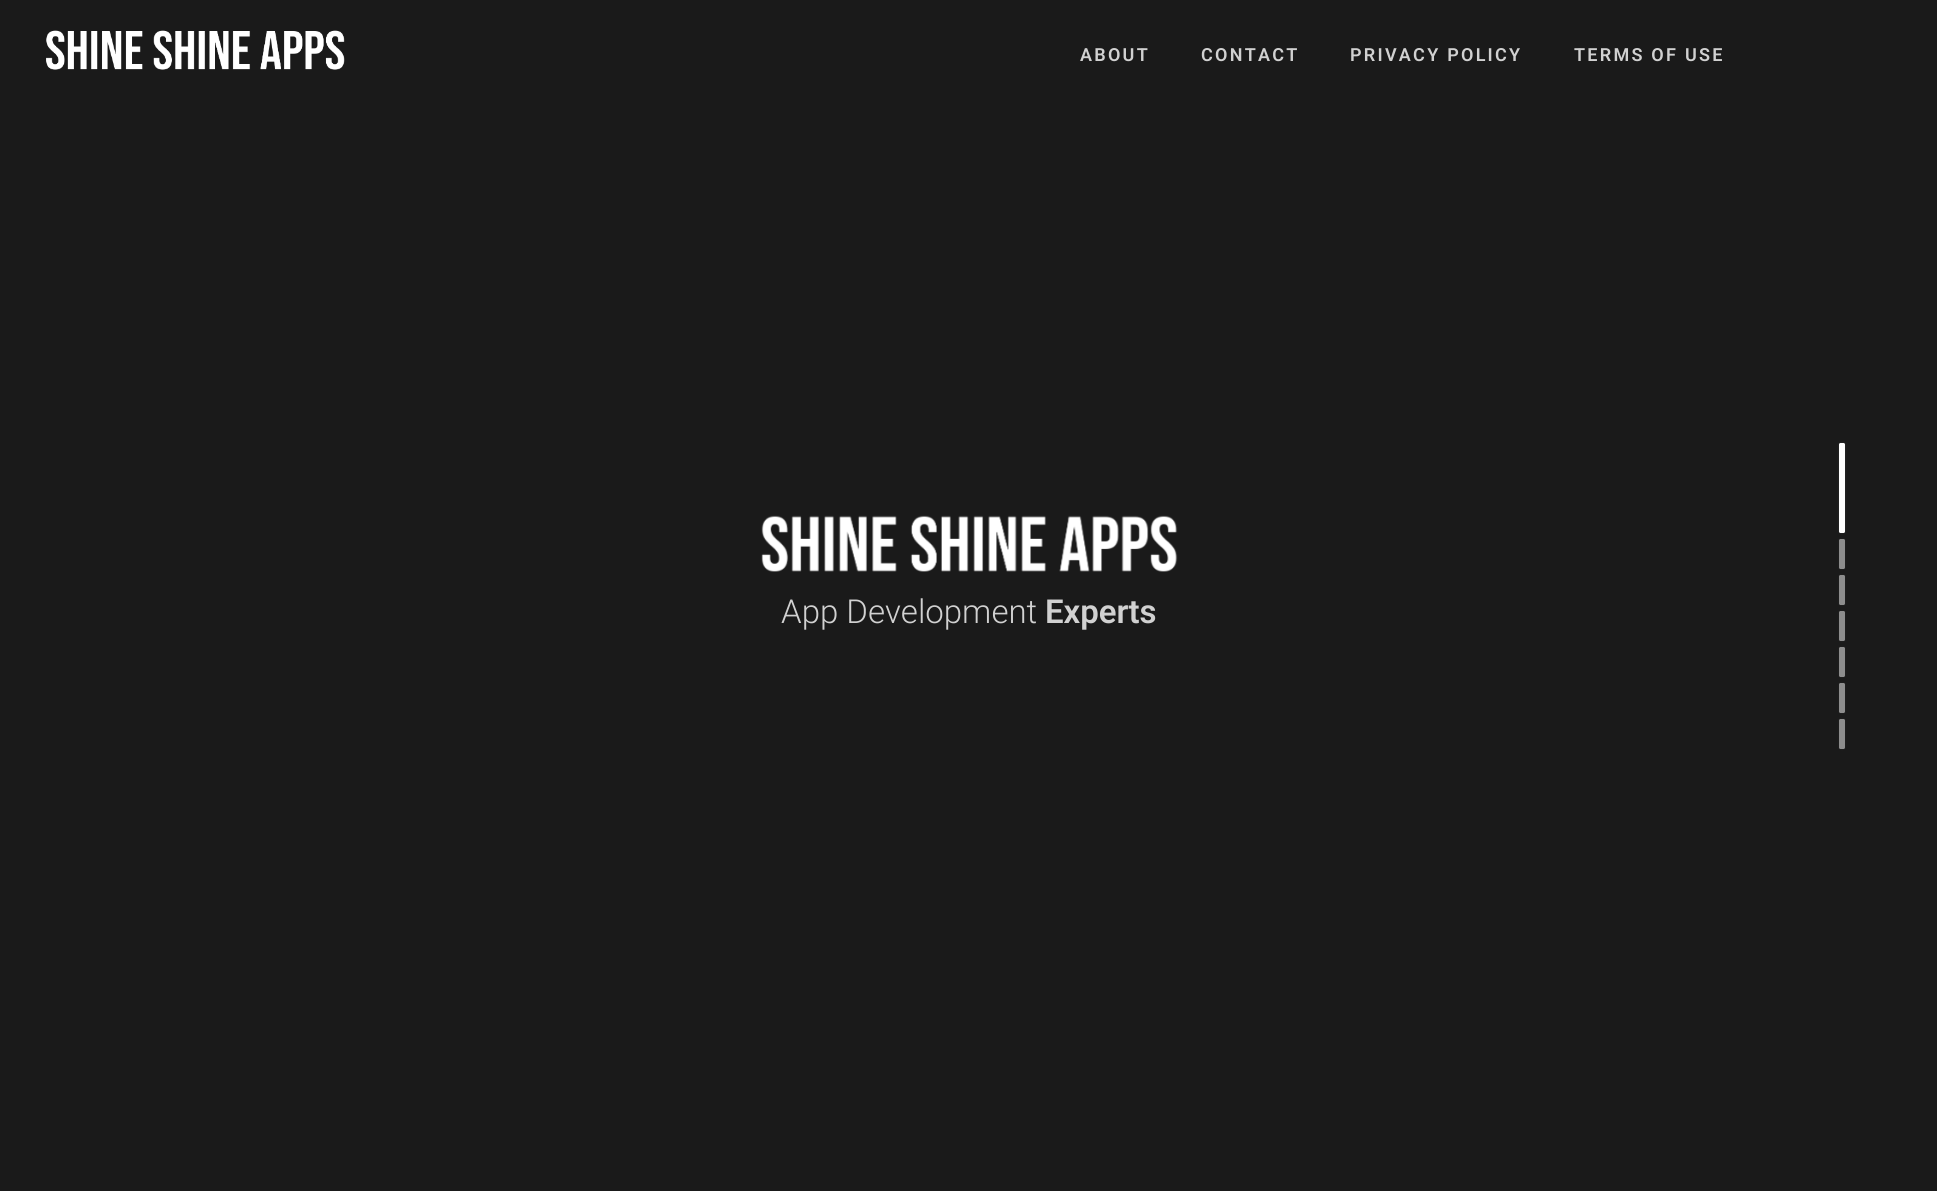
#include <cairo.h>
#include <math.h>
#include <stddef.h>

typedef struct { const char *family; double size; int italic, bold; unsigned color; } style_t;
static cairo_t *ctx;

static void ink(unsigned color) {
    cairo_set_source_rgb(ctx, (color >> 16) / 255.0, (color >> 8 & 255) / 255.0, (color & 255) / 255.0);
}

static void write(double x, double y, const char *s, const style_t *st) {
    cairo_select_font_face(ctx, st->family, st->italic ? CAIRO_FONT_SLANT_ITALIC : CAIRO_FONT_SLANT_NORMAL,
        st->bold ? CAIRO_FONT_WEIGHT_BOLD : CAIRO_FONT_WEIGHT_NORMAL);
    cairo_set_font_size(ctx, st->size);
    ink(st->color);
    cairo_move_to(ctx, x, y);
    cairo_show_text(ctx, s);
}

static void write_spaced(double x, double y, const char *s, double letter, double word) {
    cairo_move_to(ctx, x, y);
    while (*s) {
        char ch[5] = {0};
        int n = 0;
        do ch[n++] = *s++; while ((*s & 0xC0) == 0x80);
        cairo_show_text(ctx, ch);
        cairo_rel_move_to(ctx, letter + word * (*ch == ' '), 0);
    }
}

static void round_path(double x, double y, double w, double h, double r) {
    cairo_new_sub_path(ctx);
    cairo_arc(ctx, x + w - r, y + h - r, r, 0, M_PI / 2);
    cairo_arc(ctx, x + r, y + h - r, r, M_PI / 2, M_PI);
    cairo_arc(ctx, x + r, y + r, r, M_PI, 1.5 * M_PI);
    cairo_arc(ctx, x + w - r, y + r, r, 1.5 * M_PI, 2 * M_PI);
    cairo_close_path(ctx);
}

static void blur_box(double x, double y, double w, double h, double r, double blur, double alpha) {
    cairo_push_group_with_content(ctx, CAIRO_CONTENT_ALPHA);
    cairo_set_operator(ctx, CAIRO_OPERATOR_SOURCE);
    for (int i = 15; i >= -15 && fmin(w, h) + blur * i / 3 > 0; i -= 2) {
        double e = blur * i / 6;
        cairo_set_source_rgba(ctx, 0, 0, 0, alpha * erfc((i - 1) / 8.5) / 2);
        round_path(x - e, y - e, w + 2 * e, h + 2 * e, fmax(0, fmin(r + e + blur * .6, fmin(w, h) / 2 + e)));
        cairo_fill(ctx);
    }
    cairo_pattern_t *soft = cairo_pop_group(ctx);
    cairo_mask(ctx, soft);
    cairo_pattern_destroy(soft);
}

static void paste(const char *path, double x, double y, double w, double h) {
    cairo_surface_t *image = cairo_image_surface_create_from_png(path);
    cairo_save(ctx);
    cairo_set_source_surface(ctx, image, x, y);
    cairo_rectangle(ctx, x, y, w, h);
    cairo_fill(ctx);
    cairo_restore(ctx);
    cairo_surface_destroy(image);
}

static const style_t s1 = {"Roboto Light", 33, 0, 0, 0xd1d1d1};
static const style_t s2 = {"Roboto SemiBold", 33, 0, 0, 0xd1d1d1};

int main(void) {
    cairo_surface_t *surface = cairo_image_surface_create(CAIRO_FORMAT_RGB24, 1937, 1191);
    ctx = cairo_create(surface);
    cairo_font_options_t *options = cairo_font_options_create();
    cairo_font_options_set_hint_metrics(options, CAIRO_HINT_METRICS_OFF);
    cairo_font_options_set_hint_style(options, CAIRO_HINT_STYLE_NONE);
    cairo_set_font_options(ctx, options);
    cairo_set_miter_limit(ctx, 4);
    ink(0x1a1a1a);
    cairo_paint(ctx);
    paste("pic1.png", 46, 30, 299, 40);
    cairo_select_font_face(ctx, "Roboto SemiBold", CAIRO_FONT_SLANT_NORMAL, CAIRO_FONT_WEIGHT_NORMAL);
    cairo_set_font_size(ctx, 18);
    ink(0xd1d1d1);
    write_spaced(1080, 61, "ABOUT", 2.25, 0);
    write_spaced(1201, 61, "CONTACT", 2.25, 0);
    write_spaced(1350, 61, "PRIVACY POLICY", 2.25, 0);
    write_spaced(1574, 61, "TERMS OF USE", 2.25, 0);
    paste("pic2.png", 761, 515, 417, 57);
    write(781, 623, "App Development", &s1);
    write(1045, 623, "Experts", &s2);
    ink(0x303030);
    blur_box(1839, 443, 6, 90, 1.5, 1, 1);
    ink(0xffffff);
    round_path(1839, 443, 6, 90, 1.5);
    cairo_fill(ctx);
    ink(0x252525);
    blur_box(1839, 539, 6, 30, 1.5, 1, 1);
    ink(0x8d8d8d);
    round_path(1839, 539, 6, 30, 1.5);
    cairo_fill(ctx);
    ink(0x252525);
    blur_box(1839, 575, 6, 30, 1.5, 1, 1);
    ink(0x8d8d8d);
    round_path(1839, 575, 6, 30, 1.5);
    cairo_fill(ctx);
    ink(0x252525);
    blur_box(1839, 611, 6, 30, 1.5, 1, 1);
    ink(0x8d8d8d);
    round_path(1839, 611, 6, 30, 1.5);
    cairo_fill(ctx);
    ink(0x252525);
    blur_box(1839, 647, 6, 30, 1.5, 1, 1);
    ink(0x8d8d8d);
    round_path(1839, 647, 6, 30, 1.5);
    cairo_fill(ctx);
    ink(0x252525);
    blur_box(1839, 683, 6, 30, 1.5, 1, 1);
    ink(0x8d8d8d);
    round_path(1839, 683, 6, 30, 1.5);
    cairo_fill(ctx);
    ink(0x252525);
    blur_box(1839, 719, 6, 30, 1.5, 1, 1);
    ink(0x8d8d8d);
    round_path(1839, 719, 6, 30, 1.5);
    cairo_fill(ctx);
    cairo_surface_write_to_png(surface, "screenshot.png");
    cairo_font_options_destroy(options);
    cairo_destroy(ctx);
    cairo_surface_destroy(surface);
    return 0;
}
